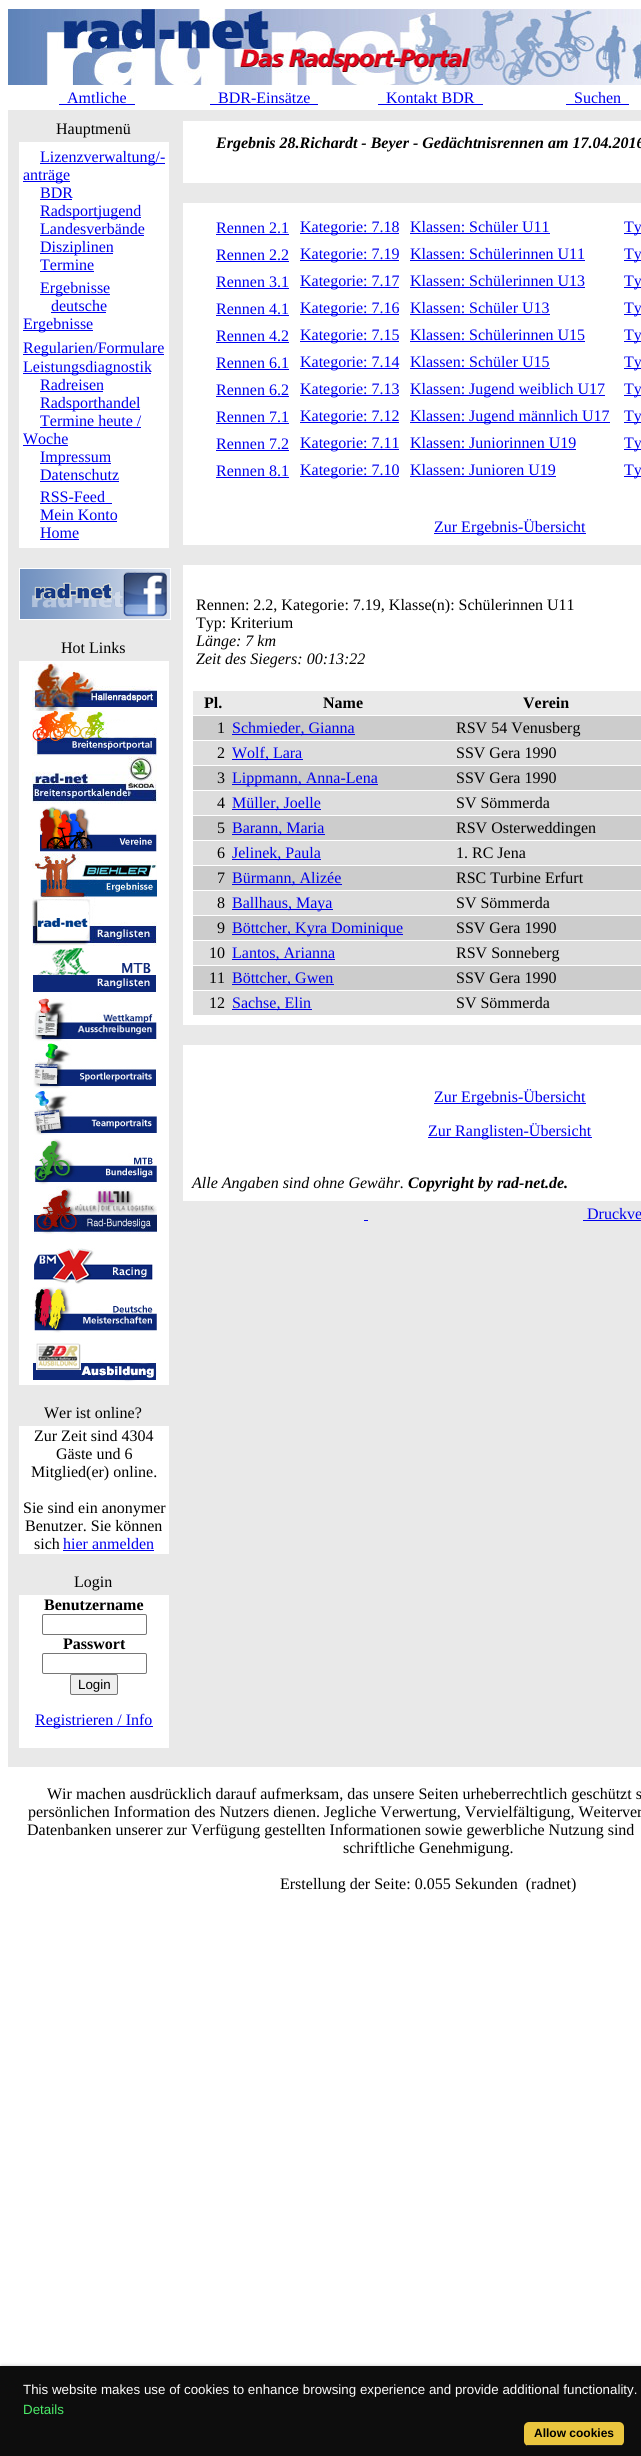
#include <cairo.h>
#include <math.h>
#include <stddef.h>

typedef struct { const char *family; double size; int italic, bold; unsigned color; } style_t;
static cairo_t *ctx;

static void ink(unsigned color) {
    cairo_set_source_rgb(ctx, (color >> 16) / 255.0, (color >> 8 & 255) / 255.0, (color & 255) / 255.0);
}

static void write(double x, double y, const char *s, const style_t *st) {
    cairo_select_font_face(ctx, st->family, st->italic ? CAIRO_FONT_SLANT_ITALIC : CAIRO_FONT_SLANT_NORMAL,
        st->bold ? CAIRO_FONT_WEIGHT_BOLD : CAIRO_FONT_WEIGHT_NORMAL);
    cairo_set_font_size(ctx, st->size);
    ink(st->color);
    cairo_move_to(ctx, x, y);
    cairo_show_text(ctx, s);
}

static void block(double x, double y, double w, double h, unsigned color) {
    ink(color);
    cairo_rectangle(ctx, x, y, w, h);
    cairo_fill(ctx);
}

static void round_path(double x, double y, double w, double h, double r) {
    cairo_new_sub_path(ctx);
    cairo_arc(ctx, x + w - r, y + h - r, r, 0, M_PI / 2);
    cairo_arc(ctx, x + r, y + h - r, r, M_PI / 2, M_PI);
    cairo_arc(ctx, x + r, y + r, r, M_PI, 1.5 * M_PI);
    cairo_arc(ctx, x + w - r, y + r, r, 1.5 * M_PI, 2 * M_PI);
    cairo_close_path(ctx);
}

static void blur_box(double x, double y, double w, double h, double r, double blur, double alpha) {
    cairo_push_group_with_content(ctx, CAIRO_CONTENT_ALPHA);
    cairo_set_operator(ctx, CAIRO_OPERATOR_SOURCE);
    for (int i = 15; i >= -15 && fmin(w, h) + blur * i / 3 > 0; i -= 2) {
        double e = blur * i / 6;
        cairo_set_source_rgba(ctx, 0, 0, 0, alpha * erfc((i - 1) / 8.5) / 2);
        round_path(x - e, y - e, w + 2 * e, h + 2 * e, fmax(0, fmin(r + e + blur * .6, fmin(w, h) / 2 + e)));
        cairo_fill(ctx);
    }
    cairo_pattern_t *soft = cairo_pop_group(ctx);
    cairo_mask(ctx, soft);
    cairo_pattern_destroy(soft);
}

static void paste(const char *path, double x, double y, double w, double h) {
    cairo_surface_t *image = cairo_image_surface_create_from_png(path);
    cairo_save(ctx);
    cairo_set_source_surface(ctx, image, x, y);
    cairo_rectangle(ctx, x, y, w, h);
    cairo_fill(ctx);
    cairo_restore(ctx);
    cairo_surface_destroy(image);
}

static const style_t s1 = {"Liberation Serif", 16, 0, 0, 0x0000ee};
static const style_t s2 = {"Liberation Serif", 16, 0, 0, 0x000000};
static const style_t s3 = {"Liberation Serif", 16, 0, 1, 0x000000};
static const style_t s4 = {"Liberation Sans", 13.35, 0, 0, 0x000000};
static const style_t s5 = {"Liberation Serif", 16, 1, 1, 0x000000};
static const style_t s6 = {"Liberation Serif", 16, 1, 0, 0x000000};
static const style_t s7 = {"Liberation Sans", 13.35, 0, 0, 0xffffff};
static const style_t s8 = {"Liberation Sans", 13.35, 0, 0, 0x4bec69};
static const style_t s9 = {"Liberation Sans", 12, 0, 1, 0x000000};

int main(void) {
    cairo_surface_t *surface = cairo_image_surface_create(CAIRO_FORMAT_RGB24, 641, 2456);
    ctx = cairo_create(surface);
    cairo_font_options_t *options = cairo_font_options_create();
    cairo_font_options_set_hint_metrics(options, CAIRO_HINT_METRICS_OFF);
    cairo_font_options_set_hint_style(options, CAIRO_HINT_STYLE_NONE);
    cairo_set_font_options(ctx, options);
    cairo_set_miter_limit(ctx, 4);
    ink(0xffffff);
    cairo_paint(ctx);
    paste("pic1.png", 8, 9, 633, 76);
    write(67, 103, "Amtliche", &s1);
    block(59, 104, 76, 1, 0x0000ee);
    write(218, 103, "BDR-Einsätze", &s1);
    block(210, 104, 108, 1, 0x0000ee);
    write(386, 103, "Kontakt BDR", &s1);
    block(378, 104, 105, 1, 0x0000ee);
    write(574, 103, "Suchen", &s1);
    block(566, 104, 63, 1, 0x0000ee);
    block(8, 110, 633, 1657, 0xe9e9e9);
    write(56, 134, "Hauptmenü", &s2);
    block(19, 142, 150, 406, 0xffffff);
    block(40, 163, 125, 1, 0x0000ee);
    write(40, 162, "Lizenzverwaltung/-", &s1);
    block(23, 181, 47, 1, 0x0000ee);
    write(23, 180, "anträge", &s1);
    write(40, 198, "BDR", &s1);
    block(40, 199, 32, 1, 0x0000ee);
    block(40, 217, 101, 1, 0x0000ee);
    write(40, 216, "Radsportjugend", &s1);
    write(40, 234, "Landesverbände", &s1);
    block(40, 235, 104, 1, 0x0000ee);
    block(40, 253, 73, 1, 0x0000ee);
    write(40, 252, "Disziplinen", &s1);
    write(40, 270, "Termine", &s1);
    block(40, 271, 54, 1, 0x0000ee);
    block(40, 294, 70, 1, 0x0000ee);
    write(40, 293, "Ergebnisse", &s1);
    write(51, 311, "deutsche", &s1);
    block(51, 312, 55, 1, 0x0000ee);
    block(23, 330, 70, 1, 0x0000ee);
    write(23, 329, "Ergebnisse", &s1);
    block(23, 354, 141, 1, 0x0000ee);
    write(23, 353, "Regularien/Formulare", &s1);
    block(23, 373, 128, 1, 0x0000ee);
    write(23, 372, "Leistungsdiagnostik", &s1);
    write(40, 390, "Radreisen", &s1);
    block(40, 391, 63, 1, 0x0000ee);
    block(40, 409, 100, 1, 0x0000ee);
    write(40, 408, "Radsporthandel", &s1);
    write(40, 426, "Termine heute /", &s1);
    block(40, 427, 101, 1, 0x0000ee);
    write(23, 444, "Woche", &s1);
    block(23, 445, 45, 1, 0x0000ee);
    block(40, 463, 71, 1, 0x0000ee);
    write(40, 462, "Impressum", &s1);
    write(40, 480, "Datenschutz", &s1);
    block(40, 481, 79, 1, 0x0000ee);
    write(40, 502, "RSS-Feed", &s1);
    block(40, 503, 72, 1, 0x0000ee);
    write(40, 520, "Mein Konto", &s1);
    block(40, 521, 77, 1, 0x0000ee);
    write(40, 538, "Home", &s1);
    block(40, 539, 39, 1, 0x0000ee);
    block(19, 568, 152, 52, 0xffffff);
    paste("pic2.png", 20, 569, 150, 50);
    write(61, 653, "Hot Links", &s2);
    block(19, 661, 150, 724, 0xffffff);
    paste("pic3.png", 32, 662, 125, 49);
    paste("pic4.png", 32, 711, 125, 45);
    paste("pic5.png", 32, 756, 125, 48);
    paste("pic6.png", 39, 806, 118, 46);
    paste("pic7.png", 32, 853, 125, 45);
    paste("pic8.png", 32, 898, 125, 48);
    paste("pic9.png", 33, 947, 123, 45);
    paste("pic10.png", 33, 998, 124, 44);
    paste("pic11.png", 33, 1043, 123, 46);
    paste("pic12.png", 33, 1091, 124, 44);
    paste("pic13.png", 33, 1138, 124, 47);
    paste("pic14.png", 32, 1186, 125, 48);
    paste("pic15.png", 34, 1248, 119, 36);
    paste("pic16.png", 32, 1287, 125, 46);
    paste("pic17.png", 33, 1343, 124, 39);
    write(44, 1418, "Wer ist online?", &s2);
    block(19, 1426, 150, 128, 0xffffff);
    write(34, 1441, "Zur Zeit sind 4304", &s2);
    write(56, 1459, "Gäste und 6", &s2);
    write(31, 1477, "Mitglied(er) online.", &s2);
    write(23, 1513, "Sie sind ein anonymer", &s2);
    write(25, 1531, "Benutzer. Sie können", &s2);
    write(34, 1549, "sich", &s2);
    write(63, 1549, "hier anmelden", &s1);
    block(63, 1550, 91, 1, 0x0000ee);
    write(74, 1587, "Login", &s2);
    block(19, 1595, 150, 153, 0xffffff);
    write(44, 1610, "Benutzername", &s3);
    round_path(42.5, 1614.5, 104, 20, 1.5);
    ink(0x767676);
    cairo_set_line_width(ctx, 1);
    cairo_stroke(ctx);
    write(63, 1649, "Passwort", &s3);
    round_path(42.5, 1653.5, 104, 20, 1.5);
    ink(0x767676);
    cairo_stroke(ctx);
    ink(0xefefef);
    round_path(70.5, 1674.5, 47, 20, 1.5);
    cairo_fill_preserve(ctx);
    ink(0x767676);
    cairo_stroke(ctx);
    write(78, 1689, "Login", &s4);
    block(35, 1726, 118, 1, 0x0000ee);
    write(35, 1725, "Registrieren / Info", &s1);
    block(183, 121, 458, 62, 0xffffff);
    write(216, 148, "Ergebnis 28.Richardt - Beyer - Gedächtnisrennen am 17.04.2016", &s5);
    block(183, 203, 458, 342, 0xffffff);
    write(216, 233, "Rennen 2.1", &s1);
    block(216, 234, 73, 1, 0x0000ee);
    block(300, 233, 99, 1, 0x0000ee);
    write(300, 232, "Kategorie: 7.18", &s1);
    write(410, 232, "Klassen: Schüler U11", &s1);
    block(410, 233, 140, 1, 0x0000ee);
    block(624, 233, 17, 1, 0x0000ee);
    write(624, 232, "Ty", &s1);
    write(216, 260, "Rennen 2.2", &s1);
    block(216, 261, 73, 1, 0x0000ee);
    block(300, 260, 99, 1, 0x0000ee);
    write(300, 259, "Kategorie: 7.19", &s1);
    write(410, 259, "Klassen: Schülerinnen U11", &s1);
    block(410, 260, 175, 1, 0x0000ee);
    block(624, 260, 17, 1, 0x0000ee);
    write(624, 259, "Ty", &s1);
    write(216, 287, "Rennen 3.1", &s1);
    block(216, 288, 73, 1, 0x0000ee);
    block(300, 287, 99, 1, 0x0000ee);
    write(300, 286, "Kategorie: 7.17", &s1);
    write(410, 286, "Klassen: Schülerinnen U13", &s1);
    block(410, 287, 175, 1, 0x0000ee);
    block(624, 287, 17, 1, 0x0000ee);
    write(624, 286, "Ty", &s1);
    write(216, 314, "Rennen 4.1", &s1);
    block(216, 315, 73, 1, 0x0000ee);
    block(300, 314, 99, 1, 0x0000ee);
    write(300, 313, "Kategorie: 7.16", &s1);
    write(410, 313, "Klassen: Schüler U13", &s1);
    block(410, 314, 140, 1, 0x0000ee);
    block(624, 314, 17, 1, 0x0000ee);
    write(624, 313, "Ty", &s1);
    write(216, 341, "Rennen 4.2", &s1);
    block(216, 342, 73, 1, 0x0000ee);
    block(300, 341, 99, 1, 0x0000ee);
    write(300, 340, "Kategorie: 7.15", &s1);
    write(410, 340, "Klassen: Schülerinnen U15", &s1);
    block(410, 341, 175, 1, 0x0000ee);
    block(624, 341, 17, 1, 0x0000ee);
    write(624, 340, "Ty", &s1);
    write(216, 368, "Rennen 6.1", &s1);
    block(216, 369, 73, 1, 0x0000ee);
    block(300, 368, 99, 1, 0x0000ee);
    write(300, 367, "Kategorie: 7.14", &s1);
    write(410, 367, "Klassen: Schüler U15", &s1);
    block(410, 368, 140, 1, 0x0000ee);
    block(624, 368, 17, 1, 0x0000ee);
    write(624, 367, "Ty", &s1);
    write(216, 395, "Rennen 6.2", &s1);
    block(216, 396, 73, 1, 0x0000ee);
    block(300, 395, 99, 1, 0x0000ee);
    write(300, 394, "Kategorie: 7.13", &s1);
    block(410, 395, 195, 1, 0x0000ee);
    write(410, 394, "Klassen: Jugend weiblich U17", &s1);
    block(624, 395, 17, 1, 0x0000ee);
    write(624, 394, "Ty", &s1);
    write(216, 422, "Rennen 7.1", &s1);
    block(216, 423, 73, 1, 0x0000ee);
    block(300, 422, 99, 1, 0x0000ee);
    write(300, 421, "Kategorie: 7.12", &s1);
    block(410, 422, 200, 1, 0x0000ee);
    write(410, 421, "Klassen: Jugend männlich U17", &s1);
    block(624, 422, 17, 1, 0x0000ee);
    write(624, 421, "Ty", &s1);
    write(216, 449, "Rennen 7.2", &s1);
    block(216, 450, 73, 1, 0x0000ee);
    block(300, 449, 99, 1, 0x0000ee);
    write(300, 448, "Kategorie: 7.11", &s1);
    write(410, 448, "Klassen: Juniorinnen U19", &s1);
    block(410, 449, 166, 1, 0x0000ee);
    block(624, 449, 17, 1, 0x0000ee);
    write(624, 448, "Ty", &s1);
    write(216, 476, "Rennen 8.1", &s1);
    block(216, 477, 73, 1, 0x0000ee);
    block(300, 476, 99, 1, 0x0000ee);
    write(300, 475, "Kategorie: 7.10", &s1);
    write(410, 475, "Klassen: Junioren U19", &s1);
    block(410, 476, 146, 1, 0x0000ee);
    block(624, 476, 17, 1, 0x0000ee);
    write(624, 475, "Ty", &s1);
    block(434, 533, 152, 1, 0x0000ee);
    write(434, 532, "Zur Ergebnis-Übersicht", &s1);
    block(183, 565, 458, 460, 0xffffff);
    write(196, 610, "Rennen: 2.2, Kategorie: 7.19, Klasse(n): Schülerinnen U11", &s2);
    write(196, 628, "Typ: Kriterium", &s2);
    write(196, 646, "Länge: 7 km", &s6);
    write(196, 664, "Zeit des Siegers: 00:13:22", &s6);
    block(193, 691, 448, 24, 0xe9e9e9);
    write(204, 708, "Pl.", &s3);
    write(323, 708, "Name", &s3);
    write(523, 708, "Verein", &s3);
    block(193, 716, 448, 24, 0xcccccc);
    write(217, 733, "1", &s2);
    block(232, 734, 123, 1, 0x0000ee);
    write(232, 733, "Schmieder, Gianna", &s1);
    write(456, 733, "RSV 54 Venusberg", &s2);
    block(193, 741, 448, 24, 0xdddddd);
    write(217, 758, "2", &s2);
    block(232, 759, 71, 1, 0x0000ee);
    write(232, 758, "Wolf, Lara", &s1);
    write(456, 758, "SSV Gera 1990", &s2);
    block(193, 766, 448, 24, 0xcccccc);
    write(217, 783, "3", &s2);
    block(232, 784, 146, 1, 0x0000ee);
    write(232, 783, "Lippmann, Anna-Lena", &s1);
    write(456, 783, "SSV Gera 1990", &s2);
    block(193, 791, 448, 24, 0xdddddd);
    write(217, 808, "4", &s2);
    block(232, 809, 89, 1, 0x0000ee);
    write(232, 808, "Müller, Joelle", &s1);
    write(456, 808, "SV Sömmerda", &s2);
    block(193, 816, 448, 24, 0xcccccc);
    write(217, 833, "5", &s2);
    block(232, 834, 93, 1, 0x0000ee);
    write(232, 833, "Barann, Maria", &s1);
    write(456, 833, "RSV Osterweddingen", &s2);
    block(193, 841, 448, 24, 0xdddddd);
    write(217, 858, "6", &s2);
    block(232, 859, 89, 1, 0x0000ee);
    write(232, 858, "Jelinek, Paula", &s1);
    write(456, 858, "1. RC Jena", &s2);
    block(193, 866, 448, 24, 0xcccccc);
    write(217, 883, "7", &s2);
    block(232, 884, 110, 1, 0x0000ee);
    write(232, 883, "Bürmann, Alizée", &s1);
    write(456, 883, "RSC Turbine Erfurt", &s2);
    block(193, 891, 448, 24, 0xdddddd);
    write(217, 908, "8", &s2);
    block(232, 909, 101, 1, 0x0000ee);
    write(232, 908, "Ballhaus, Maya", &s1);
    write(456, 908, "SV Sömmerda", &s2);
    block(193, 916, 448, 24, 0xcccccc);
    write(217, 933, "9", &s2);
    block(232, 934, 171, 1, 0x0000ee);
    write(232, 933, "Böttcher, Kyra Dominique", &s1);
    write(456, 933, "SSV Gera 1990", &s2);
    block(193, 941, 448, 24, 0xdddddd);
    write(209, 958, "10", &s2);
    block(232, 959, 103, 1, 0x0000ee);
    write(232, 958, "Lantos, Arianna", &s1);
    write(456, 958, "RSV Sonneberg", &s2);
    block(193, 966, 448, 24, 0xcccccc);
    write(209, 983, "11", &s2);
    block(232, 984, 102, 1, 0x0000ee);
    write(232, 983, "Böttcher, Gwen", &s1);
    write(456, 983, "SSV Gera 1990", &s2);
    block(193, 991, 448, 24, 0xdddddd);
    write(209, 1008, "12", &s2);
    block(232, 1009, 80, 1, 0x0000ee);
    write(232, 1008, "Sachse, Elin", &s1);
    write(456, 1008, "SV Sömmerda", &s2);
    block(183, 1045, 458, 156, 0xffffff);
    block(434, 1103, 152, 1, 0x0000ee);
    write(434, 1102, "Zur Ergebnis-Übersicht", &s1);
    block(428, 1137, 164, 1, 0x0000ee);
    write(428, 1136, "Zur Ranglisten-Übersicht", &s1);
    write(192, 1188, "Alle Angaben sind ohne Gewähr.", &s6);
    write(408, 1188, "Copyright by rad-net.de.", &s5);
    write(587, 1219, "Druckve", &s1);
    block(583, 1220, 58, 1, 0x0000ee);
    block(364, 1220, 4, 1, 0x0000ee);
    write(47, 1799, "Wir machen ausdrücklich darauf aufmerksam, das unsere Seiten urheberrechtlich geschützt s", &s2);
    write(28, 1817, "persönlichen Information des Nutzers dienen. Jegliche Verwertung, Vervielfältigung, Weiterver", &s2);
    write(27, 1835, "Datenbanken unserer zur Verfügung gestellten Informationen sowie gewerbliche Nutzung sind", &s2);
    write(343, 1853, "schriftliche Genehmigung.", &s2);
    write(280, 1889, "Erstellung der Seite: 0.055 Sekunden  (radnet)", &s2);
    ink(0x000000);
    blur_box(2, 2368, 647, 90, 0, 2.5, 0.6);
    block(0, 2366, 641, 90, 0x0d0d0d);
    write(23, 2394, "This website makes use of cookies to enhance browsing experience and provide additional functionality.", &s7);
    write(23, 2414, "Details", &s8);
    ink(0xeac53e);
    round_path(524, 2422, 100, 24, 5);
    cairo_fill(ctx);
    block(527, 2445, 95, 1, 0x222222);
    write(534, 2437, "Allow cookies", &s9);
    cairo_surface_write_to_png(surface, "screenshot.png");
    cairo_font_options_destroy(options);
    cairo_destroy(ctx);
    cairo_surface_destroy(surface);
    return 0;
}
